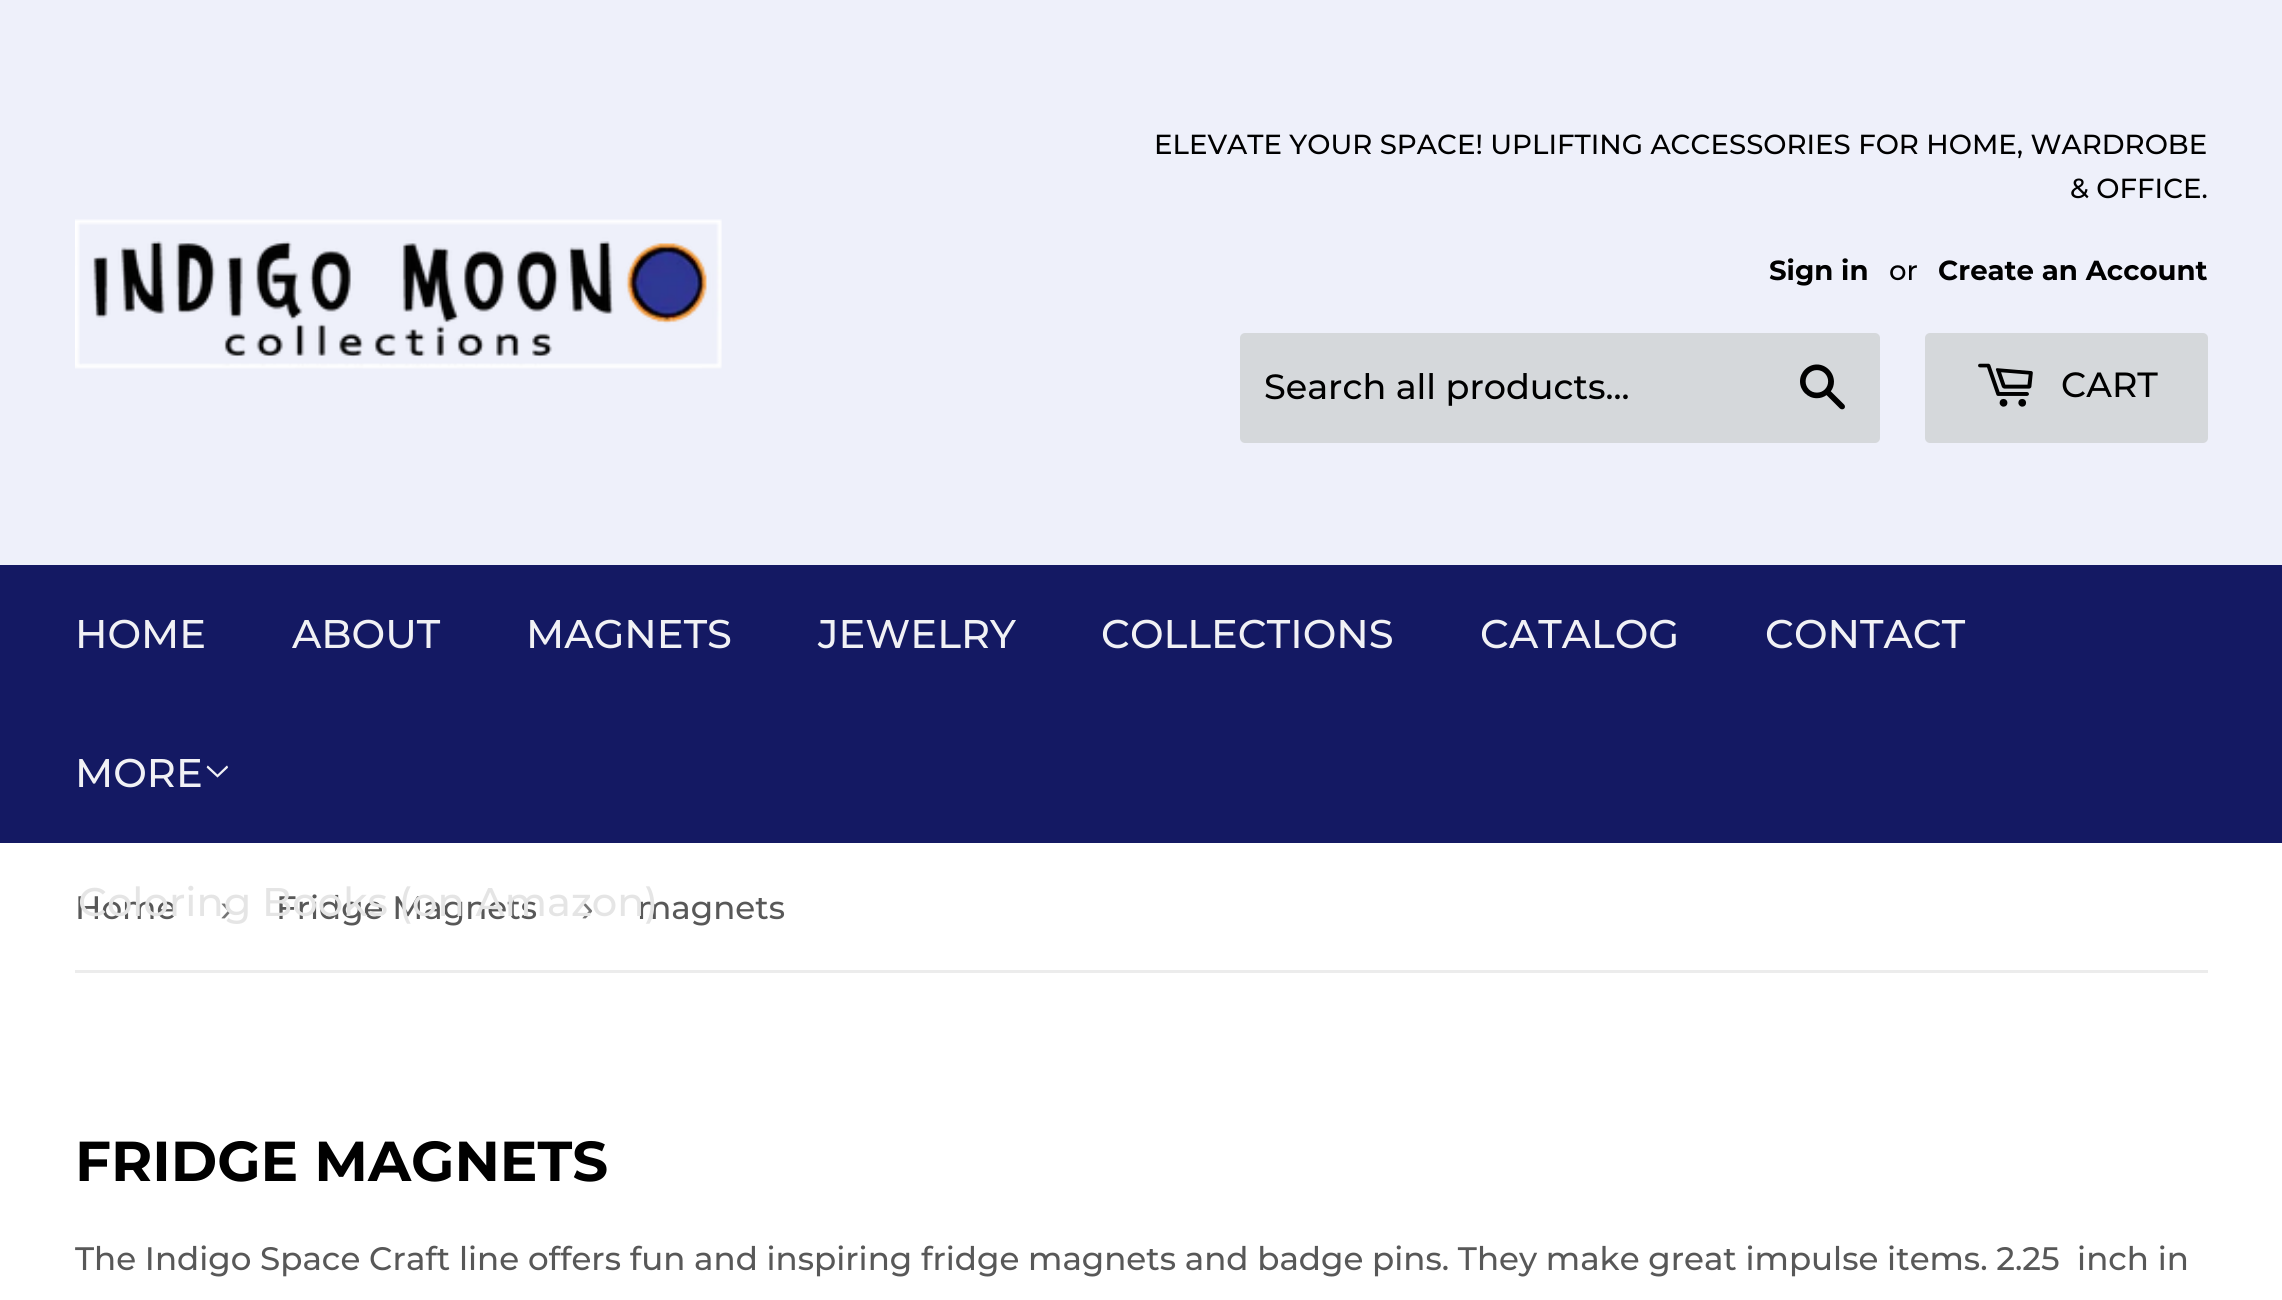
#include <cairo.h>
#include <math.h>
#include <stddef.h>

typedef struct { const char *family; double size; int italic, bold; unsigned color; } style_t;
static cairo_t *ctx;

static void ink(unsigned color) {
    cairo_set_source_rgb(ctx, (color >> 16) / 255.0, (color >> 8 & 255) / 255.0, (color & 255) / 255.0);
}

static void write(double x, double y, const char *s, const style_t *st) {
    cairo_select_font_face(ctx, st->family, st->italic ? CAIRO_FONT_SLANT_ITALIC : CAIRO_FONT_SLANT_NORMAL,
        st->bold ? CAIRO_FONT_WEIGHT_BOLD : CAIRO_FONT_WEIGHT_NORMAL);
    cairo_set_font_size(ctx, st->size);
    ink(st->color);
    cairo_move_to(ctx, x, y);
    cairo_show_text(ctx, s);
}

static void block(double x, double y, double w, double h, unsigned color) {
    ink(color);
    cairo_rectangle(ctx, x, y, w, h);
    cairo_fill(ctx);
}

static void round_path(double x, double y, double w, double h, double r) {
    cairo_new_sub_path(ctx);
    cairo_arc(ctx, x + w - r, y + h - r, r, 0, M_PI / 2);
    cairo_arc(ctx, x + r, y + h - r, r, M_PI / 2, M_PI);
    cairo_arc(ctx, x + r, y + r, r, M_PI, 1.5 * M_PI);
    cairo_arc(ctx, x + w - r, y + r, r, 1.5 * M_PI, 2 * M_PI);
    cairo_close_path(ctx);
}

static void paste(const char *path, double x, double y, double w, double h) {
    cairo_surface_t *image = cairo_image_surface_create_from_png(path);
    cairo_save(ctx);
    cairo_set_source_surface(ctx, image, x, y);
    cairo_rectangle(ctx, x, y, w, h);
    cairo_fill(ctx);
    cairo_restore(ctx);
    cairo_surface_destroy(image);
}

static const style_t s1 = {"Montserrat Medium", 27.6, 0, 0, 0x000000};
static const style_t s2 = {"Montserrat", 27.6, 0, 1, 0x000000};
static const style_t s3 = {"Montserrat Medium", 35, 0, 0, 0x000000};
static const style_t s4 = {"Montserrat Medium", 40, 0, 0, 0xf1f1f5};
static const style_t s5 = {"Montserrat Medium", 32.5, 0, 0, 0x585858};
static const style_t s6 = {"Liberation Sans", 38, 0, 0, 0x767676};
static const style_t s7 = {"Montserrat Medium", 40, 0, 0, 0xe5e5e5};
static const style_t s8 = {"Montserrat", 56.25, 0, 1, 0x000000};

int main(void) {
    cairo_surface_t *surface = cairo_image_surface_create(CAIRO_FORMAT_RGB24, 2282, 1300);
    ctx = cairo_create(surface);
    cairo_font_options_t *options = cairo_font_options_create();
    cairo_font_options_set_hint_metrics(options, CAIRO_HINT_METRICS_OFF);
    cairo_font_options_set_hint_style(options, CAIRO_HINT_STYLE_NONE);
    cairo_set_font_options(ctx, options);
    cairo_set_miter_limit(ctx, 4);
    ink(0xffffff);
    cairo_paint(ctx);
    block(0, 0, 2282, 565, 0xeef0fa);
    paste("pic1.png", 75, 219, 647, 150);
    write(1154, 154, "ELEVATE YOUR SPACE! UPLIFTING ACCESSORIES FOR HOME, WARDROBE", &s1);
    write(2070, 198, "& OFFICE.", &s1);
    write(1769, 280, "Sign in", &s2);
    write(1889, 280, "or", &s1);
    write(1938, 280, "Create an Account", &s2);
    ink(0xd5d8db);
    round_path(1240, 333, 640, 110, 5);
    cairo_fill(ctx);
    write(1264, 399, "Search all products...", &s3);
    paste("pic2.png", 1800, 364, 45, 46);
    ink(0xd5d8db);
    round_path(1925, 333, 283, 110, 5);
    cairo_fill(ctx);
    paste("pic3.png", 1978, 363, 55, 44);
    write(2061, 397, "CART", &s3);
    block(0, 565, 2282, 278, 0x141963);
    write(75, 648, "HOME", &s4);
    write(292, 648, "ABOUT", &s4);
    write(526, 648, "MAGNETS", &s4);
    write(818, 648, "JEWELRY", &s4);
    write(1101, 648, "COLLECTIONS", &s4);
    write(1480, 648, "CATALOG", &s4);
    write(1765, 648, "CONTACT", &s4);
    write(75, 787, "MORE", &s4);
    paste("pic4.png", 206, 765, 22, 13);
    write(75, 919, "Home", &s5);
    write(220, 921, "›", &s6);
    write(276, 919, "Fridge Magnets", &s5);
    write(581, 921, "›", &s6);
    write(637, 919, "magnets", &s5);
    write(78, 916, "Coloring Books (on Amazon)", &s7);
    block(75, 970, 2133, 3, 0xececec);
    write(75, 1181, "FRIDGE MAGNETS", &s8);
    write(75, 1270, "The Indigo Space Craft line offers fun and inspiring fridge magnets and badge pins. They make great impulse items. 2.25  inch in", &s5);
    cairo_surface_write_to_png(surface, "screenshot.png");
    cairo_font_options_destroy(options);
    cairo_destroy(ctx);
    cairo_surface_destroy(surface);
    return 0;
}
